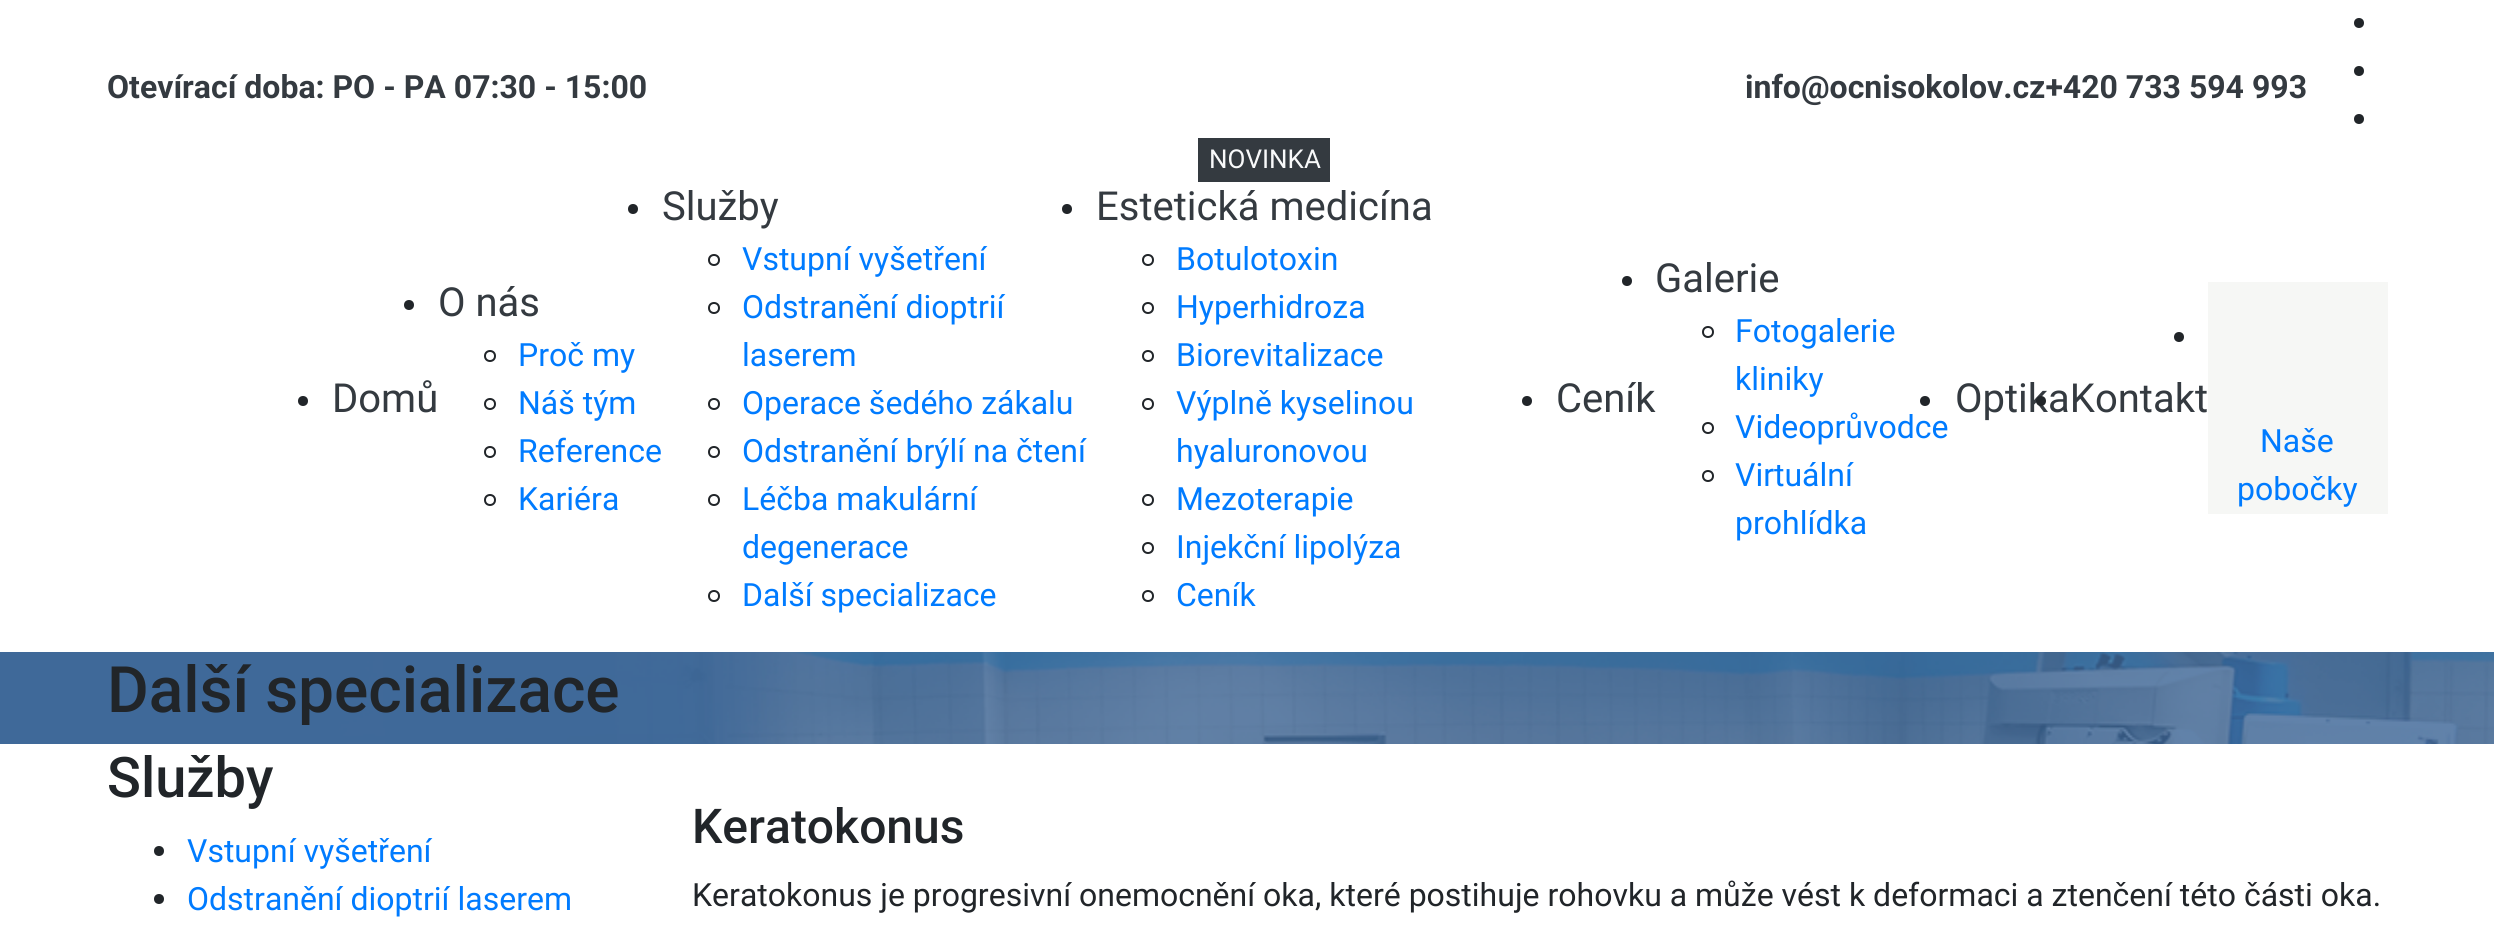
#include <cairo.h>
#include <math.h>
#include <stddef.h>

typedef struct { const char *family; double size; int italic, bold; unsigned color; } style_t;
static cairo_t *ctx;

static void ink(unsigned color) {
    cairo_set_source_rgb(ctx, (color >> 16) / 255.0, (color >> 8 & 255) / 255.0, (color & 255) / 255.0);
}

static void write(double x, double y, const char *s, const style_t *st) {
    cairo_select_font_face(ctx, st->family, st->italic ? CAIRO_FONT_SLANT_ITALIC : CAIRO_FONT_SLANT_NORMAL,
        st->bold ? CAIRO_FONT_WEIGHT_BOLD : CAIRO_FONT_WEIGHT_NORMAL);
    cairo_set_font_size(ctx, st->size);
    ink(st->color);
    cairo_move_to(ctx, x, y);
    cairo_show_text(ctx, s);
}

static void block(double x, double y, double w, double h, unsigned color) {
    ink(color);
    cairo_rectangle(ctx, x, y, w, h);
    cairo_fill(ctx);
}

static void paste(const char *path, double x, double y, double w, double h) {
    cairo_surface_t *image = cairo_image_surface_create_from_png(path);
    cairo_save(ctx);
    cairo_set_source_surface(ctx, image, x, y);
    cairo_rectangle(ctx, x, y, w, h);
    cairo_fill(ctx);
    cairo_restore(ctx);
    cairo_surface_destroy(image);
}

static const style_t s1 = {"Roboto", 32, 0, 1, 0x343a40};
static const style_t s2 = {"Roboto", 40, 0, 0, 0x343a40};
static const style_t s3 = {"Roboto", 32, 0, 0, 0x007bff};
static const style_t s4 = {"Roboto", 26, 0, 0, 0xf8f9fa};
static const style_t s5 = {"Roboto Medium", 64, 0, 0, 0x212529};
static const style_t s6 = {"Roboto Medium", 56, 0, 0, 0x212529};
static const style_t s7 = {"Roboto Medium", 48, 0, 0, 0x212529};
static const style_t s8 = {"Roboto", 32, 0, 0, 0x212529};

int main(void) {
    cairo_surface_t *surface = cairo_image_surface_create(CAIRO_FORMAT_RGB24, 2494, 940);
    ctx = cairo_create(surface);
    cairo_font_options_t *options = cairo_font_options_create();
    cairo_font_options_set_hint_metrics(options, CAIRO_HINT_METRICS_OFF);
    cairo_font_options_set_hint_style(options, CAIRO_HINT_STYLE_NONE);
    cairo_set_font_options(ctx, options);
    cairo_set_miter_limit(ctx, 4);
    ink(0xffffff);
    cairo_paint(ctx);
    write(107, 98, "Otevírací doba: PO - PA 07:30 - 15:00", &s1);
    write(1745, 98, "info@ocnisokolov.cz+420 733 594 993", &s1);
    ink(0x212529);
    cairo_new_path(ctx);
    cairo_arc(ctx, 2359, 23, 5, 0, 2 * M_PI);
    cairo_fill(ctx);
    cairo_arc(ctx, 2359, 71, 5, 0, 2 * M_PI);
    cairo_fill(ctx);
    cairo_arc(ctx, 2359, 119, 5, 0, 2 * M_PI);
    cairo_fill(ctx);
    cairo_arc(ctx, 303, 401, 5, 0, 2 * M_PI);
    cairo_fill(ctx);
    write(332, 412, "Domů", &s2);
    ink(0x212529);
    cairo_new_path(ctx);
    cairo_arc(ctx, 409, 305, 5, 0, 2 * M_PI);
    cairo_fill(ctx);
    write(438, 316, "O nás", &s2);
    cairo_new_path(ctx);
    cairo_arc(ctx, 490, 356, 5, 0, 2 * M_PI);
    ink(0x212529);
    cairo_stroke(ctx);
    write(518, 366, "Proč my", &s3);
    cairo_new_path(ctx);
    cairo_arc(ctx, 490, 404, 5, 0, 2 * M_PI);
    ink(0x212529);
    cairo_stroke(ctx);
    write(518, 414, "Náš tým", &s3);
    cairo_new_path(ctx);
    cairo_arc(ctx, 490, 452, 5, 0, 2 * M_PI);
    ink(0x212529);
    cairo_stroke(ctx);
    write(518, 462, "Reference", &s3);
    cairo_new_path(ctx);
    cairo_arc(ctx, 490, 500, 5, 0, 2 * M_PI);
    ink(0x212529);
    cairo_stroke(ctx);
    write(518, 510, "Kariéra", &s3);
    ink(0x212529);
    cairo_new_path(ctx);
    cairo_arc(ctx, 633, 209, 5, 0, 2 * M_PI);
    cairo_fill(ctx);
    write(662, 220, "Služby", &s2);
    cairo_new_path(ctx);
    cairo_arc(ctx, 714, 260, 5, 0, 2 * M_PI);
    ink(0x212529);
    cairo_stroke(ctx);
    write(742, 270, "Vstupní vyšetření", &s3);
    cairo_new_path(ctx);
    cairo_arc(ctx, 714, 308, 5, 0, 2 * M_PI);
    ink(0x212529);
    cairo_stroke(ctx);
    write(742, 318, "Odstranění dioptrií", &s3);
    write(742, 366, "laserem", &s3);
    cairo_new_path(ctx);
    cairo_arc(ctx, 714, 404, 5, 0, 2 * M_PI);
    ink(0x212529);
    cairo_stroke(ctx);
    write(742, 414, "Operace šedého zákalu", &s3);
    cairo_new_path(ctx);
    cairo_arc(ctx, 714, 452, 5, 0, 2 * M_PI);
    ink(0x212529);
    cairo_stroke(ctx);
    write(742, 462, "Odstranění brýlí na čtení", &s3);
    cairo_new_path(ctx);
    cairo_arc(ctx, 714, 500, 5, 0, 2 * M_PI);
    ink(0x212529);
    cairo_stroke(ctx);
    write(742, 510, "Léčba makulární", &s3);
    write(742, 558, "degenerace", &s3);
    cairo_new_path(ctx);
    cairo_arc(ctx, 714, 596, 5, 0, 2 * M_PI);
    ink(0x212529);
    cairo_stroke(ctx);
    write(742, 606, "Další specializace", &s3);
    ink(0x212529);
    cairo_new_path(ctx);
    cairo_arc(ctx, 1067, 209, 5, 0, 2 * M_PI);
    cairo_fill(ctx);
    block(1198, 138, 132, 44, 0x343a40);
    write(1209, 168, "NOVINKA", &s4);
    write(1096, 220, "Estetická medicína", &s2);
    cairo_new_path(ctx);
    cairo_arc(ctx, 1148, 260, 5, 0, 2 * M_PI);
    ink(0x212529);
    cairo_stroke(ctx);
    write(1176, 270, "Botulotoxin", &s3);
    cairo_new_path(ctx);
    cairo_arc(ctx, 1148, 308, 5, 0, 2 * M_PI);
    ink(0x212529);
    cairo_stroke(ctx);
    write(1176, 318, "Hyperhidroza", &s3);
    cairo_new_path(ctx);
    cairo_arc(ctx, 1148, 356, 5, 0, 2 * M_PI);
    ink(0x212529);
    cairo_stroke(ctx);
    write(1176, 366, "Biorevitalizace", &s3);
    cairo_new_path(ctx);
    cairo_arc(ctx, 1148, 404, 5, 0, 2 * M_PI);
    ink(0x212529);
    cairo_stroke(ctx);
    write(1176, 414, "Výplně kyselinou", &s3);
    write(1176, 462, "hyaluronovou", &s3);
    cairo_new_path(ctx);
    cairo_arc(ctx, 1148, 500, 5, 0, 2 * M_PI);
    ink(0x212529);
    cairo_stroke(ctx);
    write(1176, 510, "Mezoterapie", &s3);
    cairo_new_path(ctx);
    cairo_arc(ctx, 1148, 548, 5, 0, 2 * M_PI);
    ink(0x212529);
    cairo_stroke(ctx);
    write(1176, 558, "Injekční lipolýza", &s3);
    cairo_new_path(ctx);
    cairo_arc(ctx, 1148, 596, 5, 0, 2 * M_PI);
    ink(0x212529);
    cairo_stroke(ctx);
    write(1176, 606, "Ceník", &s3);
    ink(0x212529);
    cairo_new_path(ctx);
    cairo_arc(ctx, 1527, 401, 5, 0, 2 * M_PI);
    cairo_fill(ctx);
    write(1556, 412, "Ceník", &s2);
    ink(0x212529);
    cairo_new_path(ctx);
    cairo_arc(ctx, 1627, 281, 5, 0, 2 * M_PI);
    cairo_fill(ctx);
    write(1655, 292, "Galerie", &s2);
    cairo_new_path(ctx);
    cairo_arc(ctx, 1708, 332, 5, 0, 2 * M_PI);
    ink(0x212529);
    cairo_stroke(ctx);
    write(1735, 342, "Fotogalerie", &s3);
    write(1735, 390, "kliniky", &s3);
    cairo_new_path(ctx);
    cairo_arc(ctx, 1708, 428, 5, 0, 2 * M_PI);
    ink(0x212529);
    cairo_stroke(ctx);
    write(1735, 438, "Videoprůvodce", &s3);
    cairo_new_path(ctx);
    cairo_arc(ctx, 1708, 476, 5, 0, 2 * M_PI);
    ink(0x212529);
    cairo_stroke(ctx);
    write(1735, 486, "Virtuální", &s3);
    write(1735, 534, "prohlídka", &s3);
    ink(0x212529);
    cairo_new_path(ctx);
    cairo_arc(ctx, 1925, 401, 5, 0, 2 * M_PI);
    cairo_fill(ctx);
    write(1955, 412, "OptikaKontakt", &s2);
    ink(0x212529);
    cairo_new_path(ctx);
    cairo_arc(ctx, 2041, 401, 5, 0, 2 * M_PI);
    cairo_fill(ctx);
    block(2208, 282, 180, 232, 0xf6f7f5);
    ink(0x212529);
    cairo_arc(ctx, 2179, 337, 5, 0, 2 * M_PI);
    cairo_fill(ctx);
    write(2260, 452, "Naše", &s3);
    write(2237, 500, "pobočky", &s3);
    paste("pic1.png", 0, 652, 2494, 92);
    write(107, 712, "Další specializace", &s5);
    write(107, 797, "Služby", &s6);
    cairo_new_path(ctx);
    cairo_arc(ctx, 159, 851, 5, 0, 2 * M_PI);
    cairo_fill(ctx);
    write(187, 862, "Vstupní vyšetření", &s3);
    ink(0x212529);
    cairo_new_path(ctx);
    cairo_arc(ctx, 159, 899, 5, 0, 2 * M_PI);
    cairo_fill(ctx);
    write(187, 910, "Odstranění dioptrií laserem", &s3);
    write(692, 843, "Keratokonus", &s7);
    write(692, 906, "Keratokonus je progresivní onemocnění oka, které postihuje rohovku a může vést k deformaci a ztenčení této části oka.", &s8);
    cairo_surface_write_to_png(surface, "screenshot.png");
    cairo_font_options_destroy(options);
    cairo_destroy(ctx);
    cairo_surface_destroy(surface);
    return 0;
}
